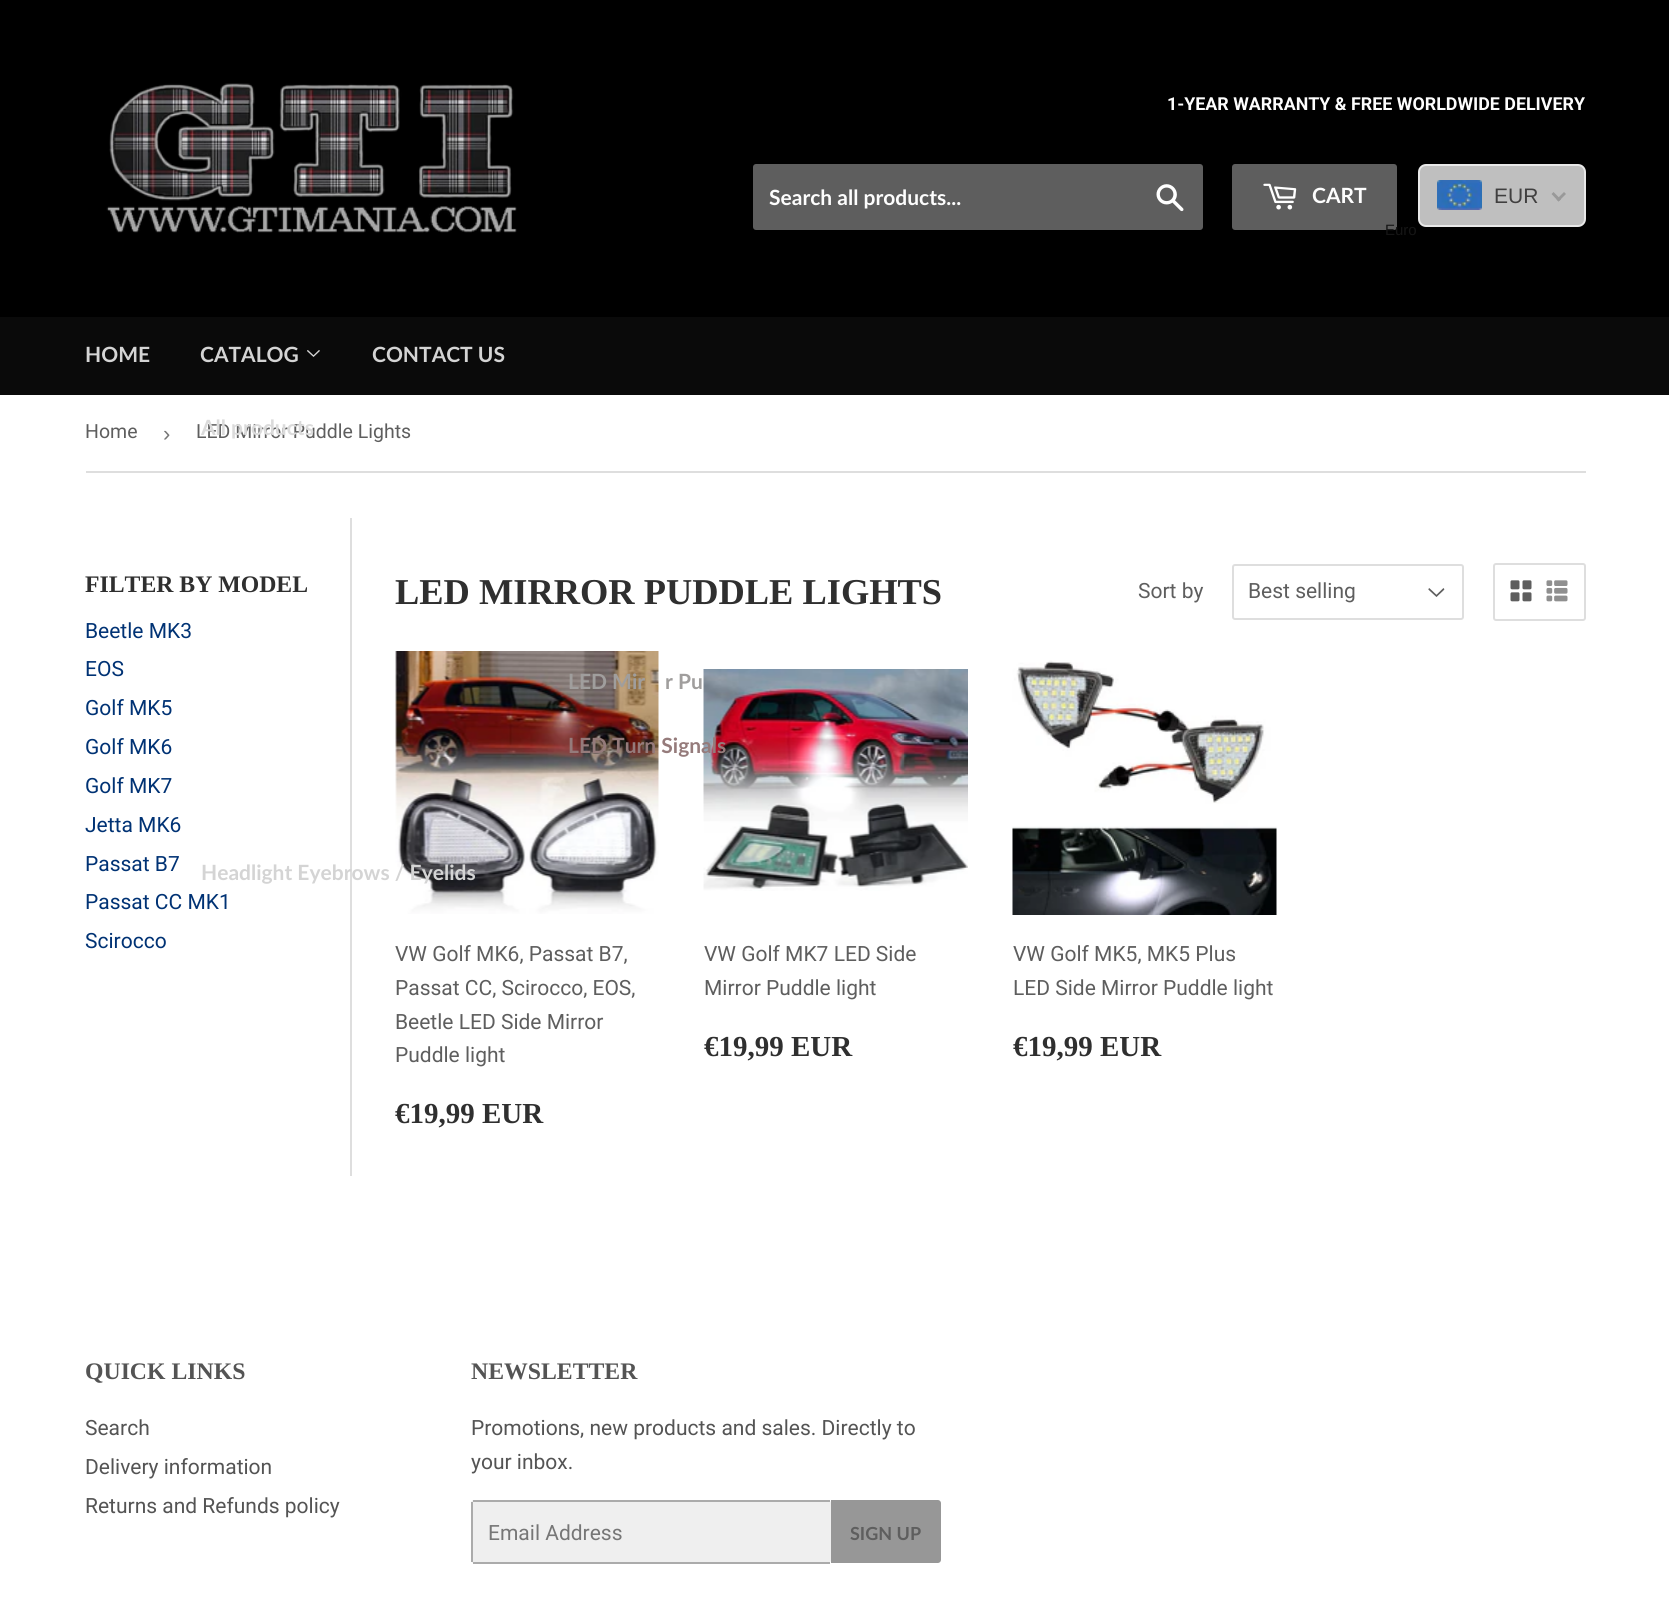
#include <cairo.h>
#include <math.h>
#include <stddef.h>

typedef struct { const char *family; double size; int italic, bold; unsigned color; } style_t;
static cairo_t *ctx;

static void ink(unsigned color) {
    cairo_set_source_rgb(ctx, (color >> 16) / 255.0, (color >> 8 & 255) / 255.0, (color & 255) / 255.0);
}

static void write(double x, double y, const char *s, const style_t *st) {
    cairo_select_font_face(ctx, st->family, st->italic ? CAIRO_FONT_SLANT_ITALIC : CAIRO_FONT_SLANT_NORMAL,
        st->bold ? CAIRO_FONT_WEIGHT_BOLD : CAIRO_FONT_WEIGHT_NORMAL);
    cairo_set_font_size(ctx, st->size);
    ink(st->color);
    cairo_move_to(ctx, x, y);
    cairo_show_text(ctx, s);
}

static void block(double x, double y, double w, double h, unsigned color) {
    ink(color);
    cairo_rectangle(ctx, x, y, w, h);
    cairo_fill(ctx);
}

static void round_path(double x, double y, double w, double h, double r) {
    cairo_new_sub_path(ctx);
    cairo_arc(ctx, x + w - r, y + h - r, r, 0, M_PI / 2);
    cairo_arc(ctx, x + r, y + h - r, r, M_PI / 2, M_PI);
    cairo_arc(ctx, x + r, y + r, r, M_PI, 1.5 * M_PI);
    cairo_arc(ctx, x + w - r, y + r, r, 1.5 * M_PI, 2 * M_PI);
    cairo_close_path(ctx);
}

static void paste(const char *path, double x, double y, double w, double h) {
    cairo_surface_t *image = cairo_image_surface_create_from_png(path);
    cairo_save(ctx);
    cairo_set_source_surface(ctx, image, x, y);
    cairo_rectangle(ctx, x, y, w, h);
    cairo_fill(ctx);
    cairo_restore(ctx);
    cairo_surface_destroy(image);
}

static const style_t s1 = {"Roboto", 17.85, 0, 1, 0xfdfdfd};
static const style_t s2 = {"Lato", 21, 0, 1, 0xfdfdfd};
static const style_t s3 = {"Liberation Sans", 21, 0, 0, 0x403f3f};
static const style_t s4 = {"Liberation Sans", 15, 0, 0, 0x151515};
static const style_t s5 = {"Lato", 21, 0, 1, 0xd4d4d4};
static const style_t s6 = {"Roboto", 19.5, 0, 0, 0x5e5e5e};
static const style_t s7 = {"Lato", 21, 0, 1, 0xdbdbdb};
static const style_t s8 = {"Lato", 21, 0, 1, 0xa09e9d};
static const style_t s9 = {"Lato", 21, 0, 1, 0x957b7b};
static const style_t s10 = {"Liberation Sans", 22, 0, 0, 0x767676};
static const style_t s11 = {"Liberation Serif", 23.75, 0, 1, 0x2f2f2f};
static const style_t s12 = {"Roboto", 21, 0, 0, 0x003274};
static const style_t s13 = {"Liberation Serif", 36.4, 0, 1, 0x2f2f2f};
static const style_t s14 = {"Roboto", 21, 0, 0, 0x5e5e5e};
static const style_t s15 = {"Liberation Serif", 29, 0, 1, 0x2f2f2f};
static const style_t s16 = {"Liberation Serif", 23.75, 0, 1, 0x545454};
static const style_t s17 = {"Roboto", 21, 0, 0, 0x545454};
static const style_t s18 = {"Roboto", 21, 0, 0, 0x767676};
static const style_t s19 = {"Lato", 18, 0, 1, 0x5e5e5e};

int main(void) {
    cairo_surface_t *surface = cairo_image_surface_create(CAIRO_FORMAT_RGB24, 1669, 1615);
    ctx = cairo_create(surface);
    cairo_font_options_t *options = cairo_font_options_create();
    cairo_font_options_set_hint_metrics(options, CAIRO_HINT_METRICS_OFF);
    cairo_font_options_set_hint_style(options, CAIRO_HINT_STYLE_NONE);
    cairo_set_font_options(ctx, options);
    cairo_set_miter_limit(ctx, 4);
    ink(0xffffff);
    cairo_paint(ctx);
    block(0, 0, 1669, 317, 0x000000);
    paste("pic1.png", 106, 83, 411, 150);
    write(1167, 110, "1-YEAR WARRANTY & FREE WORLDWIDE DELIVERY", &s1);
    ink(0x5e5e5e);
    round_path(753, 164, 450, 66, 3);
    cairo_fill(ctx);
    write(769, 205, "Search all products...", &s2);
    paste("pic2.png", 1156, 184, 28, 28);
    ink(0x5e5e5e);
    round_path(1232, 164, 165, 66, 3);
    cairo_fill(ctx);
    paste("pic3.png", 1263, 183, 34, 27);
    write(1312, 203, "CART", &s2);
    ink(0xbfbfbf);
    round_path(1419, 165, 166, 61, 7);
    cairo_fill_preserve(ctx);
    ink(0xe8e8e8);
    cairo_stroke(ctx);
    paste("pic4.png", 1437, 180, 45, 30);
    write(1494, 203, "EUR", &s3);
    ink(0x999999);
    cairo_new_path(ctx);
    cairo_move_to(ctx, 1564, 192);
    cairo_line_to(ctx, 1566, 194);
    cairo_line_to(ctx, 1558.5, 201.5);
    cairo_line_to(ctx, 1556.5, 199.5);
    cairo_close_path(ctx);
    cairo_fill(ctx);
    cairo_new_path(ctx);
    cairo_move_to(ctx, 1553.5, 192);
    cairo_line_to(ctx, 1561, 199.5);
    cairo_line_to(ctx, 1558.5, 201.5);
    cairo_line_to(ctx, 1551.5, 194);
    cairo_close_path(ctx);
    cairo_fill(ctx);
    write(1385, 235, "Euro", &s4);
    block(0, 317, 1669, 78, 0x0a0a0a);
    write(85, 362, "HOME", &s5);
    write(200, 362, "CATALOG", &s5);
    paste("pic5.png", 307, 350, 13, 7);
    write(196, 438, "LED Mirror Puddle Lights", &s6);
    write(201, 435, "All products", &s7);
    paste("pic9.png", 395, 651, 264, 263);
    write(568, 689, "LED Mir", &s8);
    write(665, 689, "r Pu", &s8);
    paste("pic10.png", 703, 669, 265, 222);
    write(568, 753, "LED Turn Signals", &s9);
    block(350, 518, 2, 658, 0xdedede);
    write(201, 880, "Headlight Eyebrows / Eyelids", &s5);
    write(372, 362, "CONTACT US", &s5);
    block(86, 471, 1500, 2, 0xdedede);
    write(85, 438, "Home", &s6);
    write(163, 441, "›", &s10);
    write(85, 592, "FILTER BY MODEL", &s11);
    write(85, 638, "Beetle MK3", &s12);
    write(85, 676, "EOS", &s12);
    write(85, 715, "Golf MK5", &s12);
    write(85, 754, "Golf MK6", &s12);
    write(85, 793, "Golf MK7", &s12);
    write(85, 832, "Jetta MK6", &s12);
    write(85, 871, "Passat B7", &s12);
    write(85, 909, "Passat CC MK1", &s12);
    write(85, 948, "Scirocco", &s12);
    write(395, 604, "LED MIRROR PUDDLE LIGHTS", &s13);
    write(1138, 598, "Sort by", &s14);
    paste("pic6.png", 1428, 588, 17, 9);
    round_path(1233, 565, 230, 54, 2);
    ink(0xdedede);
    cairo_stroke(ctx);
    write(1248, 598, "Best selling", &s14);
    round_path(1494, 564, 91, 56, 2);
    ink(0xdedede);
    cairo_stroke(ctx);
    paste("pic7.png", 1510, 580, 22, 22);
    paste("pic8.png", 1546, 580, 22, 22);
    write(395, 961, "VW Golf MK6, Passat B7,", &s14);
    write(395, 995, "Passat CC, Scirocco, EOS,", &s14);
    write(395, 1029, "Beetle LED Side Mirror", &s14);
    write(395, 1062, "Puddle light", &s14);
    write(395, 1123, "€19,99 EUR", &s15);
    write(704, 961, "VW Golf MK7 LED Side", &s14);
    write(704, 995, "Mirror Puddle light", &s14);
    write(704, 1056, "€19,99 EUR", &s15);
    paste("pic11.png", 1012, 660, 265, 255);
    write(1013, 961, "VW Golf MK5, MK5 Plus", &s14);
    write(1013, 995, "LED Side Mirror Puddle light", &s14);
    write(1013, 1056, "€19,99 EUR", &s15);
    write(85, 1379, "QUICK LINKS", &s16);
    write(85, 1435, "Search", &s17);
    write(85, 1474, "Delivery information", &s17);
    write(85, 1513, "Returns and Refunds policy", &s17);
    write(471, 1379, "NEWSLETTER", &s16);
    write(471, 1435, "Promotions, new products and sales. Directly to", &s17);
    write(471, 1469, "your inbox.", &s17);
    ink(0xefefef);
    round_path(471, 1500, 360, 63, 3);
    cairo_fill(ctx);
    block(473, 1500, 357, 2, 0xababab);
    block(473, 1562, 357, 2, 0xababab);
    block(471, 1502, 2, 60, 0xababab);
    write(488, 1540, "Email Address", &s18);
    ink(0x979797);
    cairo_new_path(ctx);
    cairo_move_to(ctx, 831, 1500);
    cairo_line_to(ctx, 938, 1500);
    cairo_curve_to(ctx, 939.5, 1500, 941, 1501.5, 941, 1503);
    cairo_line_to(ctx, 941, 1560);
    cairo_curve_to(ctx, 941, 1561.5, 939.5, 1563, 938, 1563);
    cairo_line_to(ctx, 831, 1563);
    cairo_close_path(ctx);
    cairo_fill(ctx);
    write(850, 1540, "SIGN UP", &s19);
    cairo_surface_write_to_png(surface, "screenshot.png");
    cairo_font_options_destroy(options);
    cairo_destroy(ctx);
    cairo_surface_destroy(surface);
    return 0;
}
